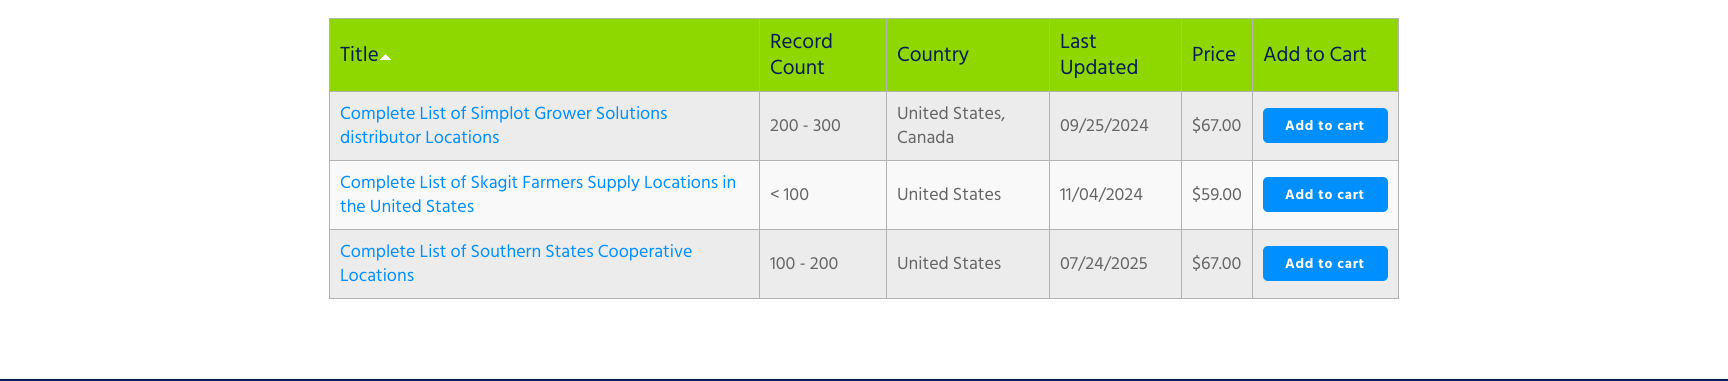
#include <cairo.h>
#include <math.h>
#include <stddef.h>

typedef struct { const char *family; double size; int italic, bold; unsigned color; } style_t;
static cairo_t *ctx;

static void ink(unsigned color) {
    cairo_set_source_rgb(ctx, (color >> 16) / 255.0, (color >> 8 & 255) / 255.0, (color & 255) / 255.0);
}

static void write(double x, double y, const char *s, const style_t *st) {
    cairo_select_font_face(ctx, st->family, st->italic ? CAIRO_FONT_SLANT_ITALIC : CAIRO_FONT_SLANT_NORMAL,
        st->bold ? CAIRO_FONT_WEIGHT_BOLD : CAIRO_FONT_WEIGHT_NORMAL);
    cairo_set_font_size(ctx, st->size);
    ink(st->color);
    cairo_move_to(ctx, x, y);
    cairo_show_text(ctx, s);
}

static void write_spaced(double x, double y, const char *s, double letter, double word) {
    cairo_move_to(ctx, x, y);
    while (*s) {
        char ch[5] = {0};
        int n = 0;
        do ch[n++] = *s++; while ((*s & 0xC0) == 0x80);
        cairo_show_text(ctx, ch);
        cairo_rel_move_to(ctx, letter + word * (*ch == ' '), 0);
    }
}

static void block(double x, double y, double w, double h, unsigned color) {
    ink(color);
    cairo_rectangle(ctx, x, y, w, h);
    cairo_fill(ctx);
}

static void round_path(double x, double y, double w, double h, double r) {
    cairo_new_sub_path(ctx);
    cairo_arc(ctx, x + w - r, y + h - r, r, 0, M_PI / 2);
    cairo_arc(ctx, x + r, y + h - r, r, M_PI / 2, M_PI);
    cairo_arc(ctx, x + r, y + r, r, M_PI, 1.5 * M_PI);
    cairo_arc(ctx, x + w - r, y + r, r, 1.5 * M_PI, 2 * M_PI);
    cairo_close_path(ctx);
}

static void paste(const char *path, double x, double y, double w, double h) {
    cairo_surface_t *image = cairo_image_surface_create_from_png(path);
    cairo_save(ctx);
    cairo_set_source_surface(ctx, image, x, y);
    cairo_rectangle(ctx, x, y, w, h);
    cairo_fill(ctx);
    cairo_restore(ctx);
    cairo_surface_destroy(image);
}

static const style_t s1 = {"Hind Siliguri", 21, 0, 0, 0x061d54};
static const style_t s2 = {"Hind Siliguri", 18, 0, 0, 0x008fff};
static const style_t s3 = {"Hind Siliguri", 18, 0, 0, 0x666666};

int main(void) {
    cairo_surface_t *surface = cairo_image_surface_create(CAIRO_FORMAT_RGB24, 1728, 381);
    ctx = cairo_create(surface);
    cairo_font_options_t *options = cairo_font_options_create();
    cairo_font_options_set_hint_metrics(options, CAIRO_HINT_METRICS_OFF);
    cairo_font_options_set_hint_style(options, CAIRO_HINT_STYLE_NONE);
    cairo_set_font_options(ctx, options);
    cairo_set_miter_limit(ctx, 4);
    ink(0xffffff);
    cairo_paint(ctx);
    block(330, 19, 429, 72, 0x8ed800);
    block(1252, 18, 147, 1, 0xb3b3b3);
    block(1252, 91, 147, 1, 0xb3b3b3);
    block(1252, 160, 147, 1, 0xb3b3b3);
    block(330, 161, 1068, 68, 0xf9f9f9);
    block(1252, 229, 147, 1, 0xb3b3b3);
    block(1398, 229, 1, 70, 0xb3b3b3);
    block(1252, 298, 147, 1, 0xb3b3b3);
    block(1252, 229, 1, 70, 0xb3b3b3);
    block(1181, 229, 72, 1, 0xb3b3b3);
    block(1252, 160, 1, 70, 0xb3b3b3);
    block(1181, 160, 72, 1, 0xb3b3b3);
    block(1252, 91, 1, 70, 0xb3b3b3);
    block(1181, 91, 72, 1, 0xb3b3b3);
    block(1252, 18, 1, 74, 0xb3b3b3);
    block(1181, 18, 72, 1, 0xb3b3b3);
    block(1181, 298, 72, 1, 0xb3b3b3);
    block(1181, 229, 1, 70, 0xb3b3b3);
    block(1049, 229, 133, 1, 0xb3b3b3);
    block(1181, 160, 1, 70, 0xb3b3b3);
    block(1049, 160, 133, 1, 0xb3b3b3);
    block(1181, 91, 1, 70, 0xb3b3b3);
    block(1049, 91, 133, 1, 0xb3b3b3);
    block(1181, 18, 1, 74, 0xb3b3b3);
    block(1049, 18, 133, 1, 0xb3b3b3);
    block(1049, 298, 133, 1, 0xb3b3b3);
    block(1049, 229, 1, 70, 0xb3b3b3);
    block(886, 229, 164, 1, 0xb3b3b3);
    block(1049, 160, 1, 70, 0xb3b3b3);
    block(886, 160, 164, 1, 0xb3b3b3);
    block(1049, 91, 1, 70, 0xb3b3b3);
    block(886, 91, 164, 1, 0xb3b3b3);
    block(1049, 18, 1, 74, 0xb3b3b3);
    block(886, 18, 164, 1, 0xb3b3b3);
    block(886, 298, 164, 1, 0xb3b3b3);
    block(886, 229, 1, 70, 0xb3b3b3);
    block(759, 229, 128, 1, 0xb3b3b3);
    block(886, 160, 1, 70, 0xb3b3b3);
    block(759, 160, 128, 1, 0xb3b3b3);
    block(886, 91, 1, 70, 0xb3b3b3);
    block(759, 91, 128, 1, 0xb3b3b3);
    block(886, 18, 1, 74, 0xb3b3b3);
    block(759, 18, 128, 1, 0xb3b3b3);
    block(759, 298, 128, 1, 0xb3b3b3);
    block(759, 229, 1, 70, 0xb3b3b3);
    block(329, 229, 431, 1, 0xb3b3b3);
    block(759, 160, 1, 70, 0xb3b3b3);
    block(329, 160, 431, 1, 0xb3b3b3);
    block(759, 91, 1, 70, 0xb3b3b3);
    block(329, 91, 431, 1, 0xb3b3b3);
    block(759, 18, 1, 74, 0xb3b3b3);
    block(329, 18, 431, 1, 0xb3b3b3);
    block(329, 298, 431, 1, 0xb3b3b3);
    block(329, 229, 1, 70, 0xb3b3b3);
    block(329, 160, 1, 70, 0xb3b3b3);
    block(329, 91, 1, 70, 0xb3b3b3);
    block(329, 18, 1, 74, 0xb3b3b3);
    write(340, 61, "Title", &s1);
    paste("pic1.png", 380, 54, 11, 6);
    block(760, 19, 126, 72, 0x8ed800);
    write(770, 48, "Record", &s1);
    write(770, 74, "Count", &s1);
    block(887, 19, 162, 72, 0x8ed800);
    write(897, 61, "Country", &s1);
    block(1050, 19, 131, 72, 0x8ed800);
    write(1060, 48, "Last", &s1);
    write(1060, 74, "Updated", &s1);
    block(1182, 19, 70, 72, 0x8ed800);
    write(1192, 61, "Price", &s1);
    block(1253, 19, 145, 72, 0x8ed800);
    block(1398, 160, 1, 70, 0xb3b3b3);
    block(1398, 91, 1, 70, 0xb3b3b3);
    block(1398, 18, 1, 74, 0xb3b3b3);
    write(1263, 61, "Add to Cart", &s1);
    block(330, 92, 429, 68, 0xececec);
    write(340, 119, "Complete List of Simplot Grower Solutions", &s2);
    write(340, 143, "distributor Locations", &s2);
    block(760, 92, 126, 68, 0xececec);
    write(770, 131, "200 - 300", &s3);
    block(887, 92, 162, 68, 0xececec);
    write(897, 119, "United States,", &s3);
    write(897, 143, "Canada", &s3);
    block(1050, 92, 131, 68, 0xececec);
    write(1060, 131, "09/25/2024", &s3);
    block(1182, 92, 70, 68, 0xececec);
    write(1192, 131, "$67.00", &s3);
    block(1253, 92, 145, 68, 0xececec);
    ink(0x008fff);
    round_path(1263, 108, 125, 35, 5);
    cairo_fill(ctx);
    cairo_select_font_face(ctx, "Hind Siliguri", CAIRO_FONT_SLANT_NORMAL, CAIRO_FONT_WEIGHT_BOLD);
    cairo_set_font_size(ctx, 14);
    ink(0xffffff);
    write_spaced(1285, 130, "Add to cart", 0.75, 0);
    write(340, 188, "Complete List of Skagit Farmers Supply Locations in", &s2);
    write(340, 212, "the United States", &s2);
    write(770, 200, "< 100", &s3);
    write(897, 200, "United States", &s3);
    write(1060, 200, "11/04/2024", &s3);
    write(1192, 200, "$59.00", &s3);
    ink(0x008fff);
    round_path(1263, 177, 125, 35, 5);
    cairo_fill(ctx);
    cairo_select_font_face(ctx, "Hind Siliguri", CAIRO_FONT_SLANT_NORMAL, CAIRO_FONT_WEIGHT_BOLD);
    cairo_set_font_size(ctx, 14);
    ink(0xffffff);
    write_spaced(1285, 199, "Add to cart", 0.75, 0);
    block(330, 230, 429, 68, 0xececec);
    write(340, 257, "Complete List of Southern States Cooperative", &s2);
    write(340, 281, "Locations", &s2);
    block(760, 230, 126, 68, 0xececec);
    write(770, 269, "100 - 200", &s3);
    block(887, 230, 162, 68, 0xececec);
    write(897, 269, "United States", &s3);
    block(1050, 230, 131, 68, 0xececec);
    write(1060, 269, "07/24/2025", &s3);
    block(1182, 230, 70, 68, 0xececec);
    write(1192, 269, "$67.00", &s3);
    block(1253, 230, 145, 68, 0xececec);
    ink(0x008fff);
    round_path(1263, 246, 125, 35, 5);
    cairo_fill(ctx);
    cairo_select_font_face(ctx, "Hind Siliguri", CAIRO_FONT_SLANT_NORMAL, CAIRO_FONT_WEIGHT_BOLD);
    cairo_set_font_size(ctx, 14);
    ink(0xffffff);
    write_spaced(1285, 268, "Add to cart", 0.75, 0);
    block(0, 379, 1728, 2, 0x061d54);
    cairo_surface_write_to_png(surface, "screenshot.png");
    cairo_font_options_destroy(options);
    cairo_destroy(ctx);
    cairo_surface_destroy(surface);
    return 0;
}
